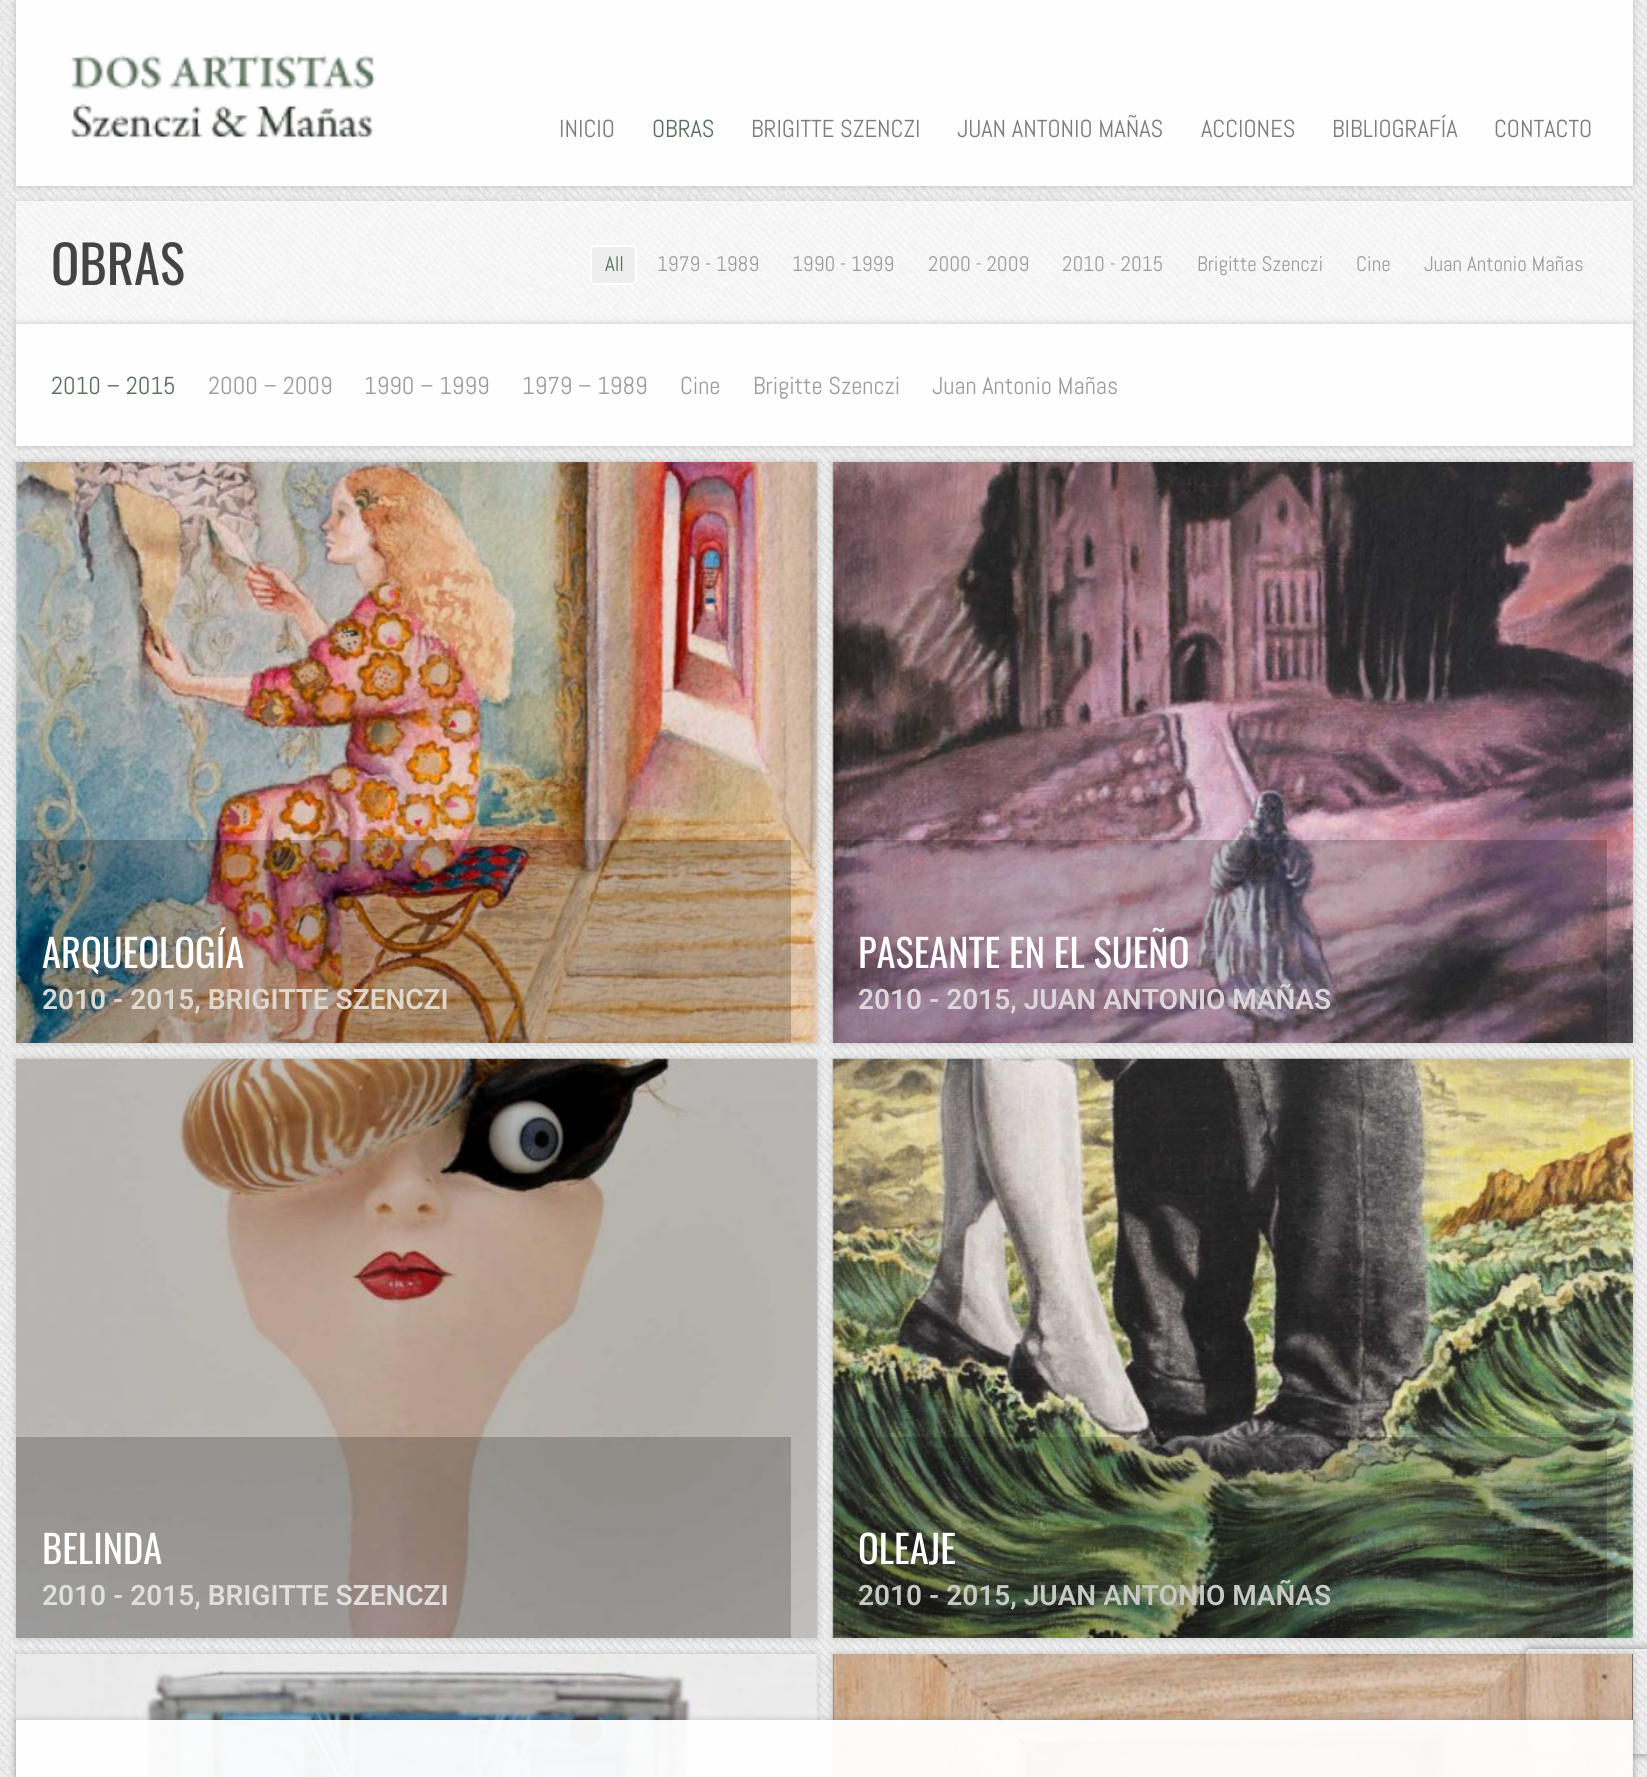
#include <cairo.h>
#include <math.h>
#include <stddef.h>

typedef struct { const char *family; double size; int italic, bold; unsigned color; } style_t;
static cairo_t *ctx;

static void ink(unsigned color) {
    cairo_set_source_rgb(ctx, (color >> 16) / 255.0, (color >> 8 & 255) / 255.0, (color & 255) / 255.0);
}

static void write(double x, double y, const char *s, const style_t *st) {
    cairo_select_font_face(ctx, st->family, st->italic ? CAIRO_FONT_SLANT_ITALIC : CAIRO_FONT_SLANT_NORMAL,
        st->bold ? CAIRO_FONT_WEIGHT_BOLD : CAIRO_FONT_WEIGHT_NORMAL);
    cairo_set_font_size(ctx, st->size);
    ink(st->color);
    cairo_move_to(ctx, x, y);
    cairo_show_text(ctx, s);
}

static void block(double x, double y, double w, double h, unsigned color) {
    ink(color);
    cairo_rectangle(ctx, x, y, w, h);
    cairo_fill(ctx);
}

static void round_path(double x, double y, double w, double h, double r) {
    cairo_new_sub_path(ctx);
    cairo_arc(ctx, x + w - r, y + h - r, r, 0, M_PI / 2);
    cairo_arc(ctx, x + r, y + h - r, r, M_PI / 2, M_PI);
    cairo_arc(ctx, x + r, y + r, r, M_PI, 1.5 * M_PI);
    cairo_arc(ctx, x + w - r, y + r, r, 1.5 * M_PI, 2 * M_PI);
    cairo_close_path(ctx);
}

static void blur_box(double x, double y, double w, double h, double r, double blur, double alpha) {
    cairo_push_group_with_content(ctx, CAIRO_CONTENT_ALPHA);
    cairo_set_operator(ctx, CAIRO_OPERATOR_SOURCE);
    for (int i = 15; i >= -15 && fmin(w, h) + blur * i / 3 > 0; i -= 2) {
        double e = blur * i / 6;
        cairo_set_source_rgba(ctx, 0, 0, 0, alpha * erfc((i - 1) / 8.5) / 2);
        round_path(x - e, y - e, w + 2 * e, h + 2 * e, fmax(0, fmin(r + e + blur * .6, fmin(w, h) / 2 + e)));
        cairo_fill(ctx);
    }
    cairo_pattern_t *soft = cairo_pop_group(ctx);
    cairo_mask(ctx, soft);
    cairo_pattern_destroy(soft);
}

static void paste(const char *path, double x, double y, double w, double h) {
    cairo_surface_t *image = cairo_image_surface_create_from_png(path);
    cairo_save(ctx);
    cairo_set_source_surface(ctx, image, x, y);
    cairo_rectangle(ctx, x, y, w, h);
    cairo_fill(ctx);
    cairo_restore(ctx);
    cairo_surface_destroy(image);
}

static const style_t s1 = {"Abel", 24.5, 0, 0, 0x7c7c7c};
static const style_t s2 = {"Abel", 24.5, 0, 0, 0x5a6f5c};
static const style_t s3 = {"Oswald", 52.5, 0, 0, 0x444444};
static const style_t s4 = {"Abel", 21, 0, 0, 0x5a6f5c};
static const style_t s5 = {"Abel", 21, 0, 0, 0x9c9c9c};
static const style_t s6 = {"Abel", 24.5, 0, 0, 0x9c9c9c};
static const style_t s7 = {"Oswald", 38.5, 0, 0, 0xffffff};
static const style_t s8 = {"Roboto SemiBold", 28, 0, 0, 0xdfd8d1};
static const style_t s9 = {"Roboto SemiBold", 28, 0, 0, 0xddd6db};
static const style_t s10 = {"Roboto SemiBold", 28, 0, 0, 0xe1dfdd};
static const style_t s11 = {"Roboto SemiBold", 28, 0, 0, 0xc6c9c4};

int main(void) {
    cairo_surface_t *surface = cairo_image_surface_create(CAIRO_FORMAT_RGB24, 1647, 1777);
    ctx = cairo_create(surface);
    cairo_font_options_t *options = cairo_font_options_create();
    cairo_font_options_set_hint_metrics(options, CAIRO_HINT_METRICS_OFF);
    cairo_font_options_set_hint_style(options, CAIRO_HINT_STYLE_NONE);
    cairo_set_font_options(ctx, options);
    cairo_set_miter_limit(ctx, 4);
    ink(0xffffff);
    cairo_paint(ctx);
    paste("pic1.png", 0, 0, 1647, 1777);
    cairo_save(ctx);
    cairo_set_fill_rule(ctx, CAIRO_FILL_RULE_EVEN_ODD);
    cairo_new_path(ctx);
    cairo_move_to(ctx, 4, 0);
    cairo_line_to(ctx, 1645, 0);
    cairo_line_to(ctx, 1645, 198);
    cairo_line_to(ctx, 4, 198);
    cairo_close_path(ctx);
    cairo_move_to(ctx, 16, 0);
    cairo_line_to(ctx, 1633, 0);
    cairo_line_to(ctx, 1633, 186);
    cairo_line_to(ctx, 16, 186);
    cairo_close_path(ctx);
    cairo_clip(ctx);
    ink(0x000000);
    blur_box(16, 0, 1617, 186, 0, 3.5, 0.2);
    cairo_restore(ctx);
    cairo_set_source_rgba(ctx, 1, 1, 1, 0.95);
    cairo_rectangle(ctx, 16, 0, 1617, 186);
    cairo_fill(ctx);
    paste("pic2.png", 71, 54, 305, 85);
    write(559, 137, "INICIO", &s1);
    write(652, 137, "OBRAS", &s2);
    write(751, 137, "BRIGITTE SZENCZI", &s1);
    write(957, 137, "JUAN ANTONIO MAÑAS", &s1);
    write(1201, 137, "ACCIONES", &s1);
    write(1332, 137, "BIBLIOGRAFÍA", &s1);
    write(1494, 137, "CONTACTO", &s1);
    cairo_save(ctx);
    cairo_set_fill_rule(ctx, CAIRO_FILL_RULE_EVEN_ODD);
    cairo_new_path(ctx);
    cairo_move_to(ctx, 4, 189);
    cairo_line_to(ctx, 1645, 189);
    cairo_line_to(ctx, 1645, 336);
    cairo_line_to(ctx, 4, 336);
    cairo_close_path(ctx);
    cairo_move_to(ctx, 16, 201);
    cairo_line_to(ctx, 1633, 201);
    cairo_line_to(ctx, 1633, 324);
    cairo_line_to(ctx, 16, 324);
    cairo_close_path(ctx);
    cairo_clip(ctx);
    ink(0x000000);
    blur_box(16, 201, 1617, 123, 0, 3.5, 0.1);
    cairo_restore(ctx);
    cairo_set_source_rgba(ctx, 1, 1, 1, 0.6);
    cairo_rectangle(ctx, 16, 201, 1617, 123);
    cairo_fill(ctx);
    write(51, 285, "OBRAS", &s3);
    ink(0xeeeeee);
    round_path(591, 246, 45, 38, 4);
    cairo_fill_preserve(ctx);
    ink(0xffffff);
    cairo_stroke(ctx);
    write(605, 271, "All", &s4);
    write(657, 271, "1979 - 1989", &s5);
    write(792, 271, "1990 - 1999", &s5);
    write(928, 271, "2000 - 2009", &s5);
    write(1062, 271, "2010 - 2015", &s5);
    write(1197, 271, "Brigitte Szenczi", &s5);
    write(1356, 271, "Cine", &s5);
    write(1424, 271, "Juan Antonio Mañas", &s5);
    cairo_save(ctx);
    cairo_set_fill_rule(ctx, CAIRO_FILL_RULE_EVEN_ODD);
    cairo_new_path(ctx);
    cairo_move_to(ctx, 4, 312);
    cairo_line_to(ctx, 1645, 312);
    cairo_line_to(ctx, 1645, 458);
    cairo_line_to(ctx, 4, 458);
    cairo_close_path(ctx);
    cairo_move_to(ctx, 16, 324);
    cairo_line_to(ctx, 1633, 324);
    cairo_line_to(ctx, 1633, 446);
    cairo_line_to(ctx, 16, 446);
    cairo_close_path(ctx);
    cairo_clip(ctx);
    ink(0x000000);
    blur_box(16, 324, 1617, 122, 0, 3.5, 0.2);
    cairo_restore(ctx);
    cairo_set_source_rgba(ctx, 1, 1, 1, 0.95);
    cairo_rectangle(ctx, 16, 324, 1617, 122);
    cairo_fill(ctx);
    write(51, 394, "2010 – 2015", &s2);
    write(208, 394, "2000 – 2009", &s6);
    write(364, 394, "1990 – 1999", &s6);
    write(522, 394, "1979 – 1989", &s6);
    write(680, 394, "Cine", &s6);
    write(753, 394, "Brigitte Szenczi", &s6);
    write(932, 394, "Juan Antonio Mañas", &s6);
    ink(0x000000);
    blur_box(16, 462, 801, 581, 0, 3.5, 0.2);
    paste("pic3.png", 16, 462, 802, 581);
    cairo_set_source_rgba(ctx, 0, 0, 0, 0.2);
    cairo_rectangle(ctx, 16, 840, 775, 203);
    cairo_fill(ctx);
    write(42, 968, "ARQUEOLOGÍA", &s7);
    write(42, 1009, "2010 - 2015, BRIGITTE SZENCZI", &s8);
    ink(0x000000);
    blur_box(833, 462, 800, 581, 0, 3.5, 0.2);
    paste("pic4.png", 832, 462, 801, 581);
    cairo_set_source_rgba(ctx, 0, 0, 0, 0.2);
    cairo_rectangle(ctx, 833, 840, 774, 203);
    cairo_fill(ctx);
    write(858, 968, "PASEANTE EN EL SUEÑO", &s7);
    write(858, 1009, "2010 - 2015, JUAN ANTONIO MAÑAS", &s9);
    ink(0x000000);
    blur_box(16, 1059, 801, 579, 0, 3.5, 0.2);
    paste("pic5.png", 16, 1058, 802, 580);
    cairo_set_source_rgba(ctx, 0, 0, 0, 0.2);
    cairo_rectangle(ctx, 16, 1437, 775, 201);
    cairo_fill(ctx);
    write(42, 1564, "BELINDA", &s7);
    write(42, 1605, "2010 - 2015, BRIGITTE SZENCZI", &s10);
    ink(0x000000);
    blur_box(833, 1059, 800, 579, 0, 3.5, 0.2);
    paste("pic6.png", 832, 1058, 801, 580);
    cairo_set_source_rgba(ctx, 0, 0, 0, 0.2);
    cairo_rectangle(ctx, 833, 1437, 774, 201);
    cairo_fill(ctx);
    write(858, 1564, "OLEAJE", &s7);
    write(858, 1605, "2010 - 2015, JUAN ANTONIO MAÑAS", &s11);
    ink(0x000000);
    blur_box(16, 1654, 801, 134, 0, 3.5, 0.2);
    paste("pic7.png", 16, 1654, 802, 123);
    blur_box(833, 1654, 800, 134, 0, 3.5, 0.2);
    block(833, 1654, 800, 123, 0x000000);
    paste("pic8.png", 832, 1654, 801, 123);
    cairo_save(ctx);
    cairo_set_fill_rule(ctx, CAIRO_FILL_RULE_EVEN_ODD);
    cairo_new_path(ctx);
    cairo_move_to(ctx, 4, 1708);
    cairo_line_to(ctx, 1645, 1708);
    cairo_line_to(ctx, 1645, 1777);
    cairo_line_to(ctx, 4, 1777);
    cairo_close_path(ctx);
    cairo_move_to(ctx, 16, 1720);
    cairo_line_to(ctx, 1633, 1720);
    cairo_line_to(ctx, 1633, 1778);
    cairo_line_to(ctx, 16, 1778);
    cairo_close_path(ctx);
    cairo_clip(ctx);
    ink(0x000000);
    blur_box(16, 1720, 1617, 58, 0, 3.5, 0.2);
    cairo_restore(ctx);
    cairo_save(ctx);
    cairo_set_fill_rule(ctx, CAIRO_FILL_RULE_EVEN_ODD);
    cairo_new_path(ctx);
    cairo_move_to(ctx, 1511, 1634);
    cairo_line_to(ctx, 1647, 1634);
    cairo_line_to(ctx, 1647, 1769);
    cairo_line_to(ctx, 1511, 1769);
    cairo_close_path(ctx);
    cairo_move_to(ctx, 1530, 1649);
    cairo_line_to(ctx, 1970, 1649);
    cairo_curve_to(ctx, 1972, 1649, 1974, 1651, 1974, 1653);
    cairo_line_to(ctx, 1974, 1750);
    cairo_curve_to(ctx, 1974, 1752, 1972, 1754, 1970, 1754);
    cairo_line_to(ctx, 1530, 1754);
    cairo_curve_to(ctx, 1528, 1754, 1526, 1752, 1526, 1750);
    cairo_line_to(ctx, 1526, 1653);
    cairo_curve_to(ctx, 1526, 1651, 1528, 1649, 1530, 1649);
    cairo_close_path(ctx);
    cairo_clip(ctx);
    ink(0x808080);
    blur_box(1526, 1649, 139, 105, 4, 4.5, 1);
    cairo_restore(ctx);
    cairo_set_source_rgba(ctx, 1, 1, 1, 0.95);
    cairo_rectangle(ctx, 16, 1720, 1617, 57);
    cairo_fill(ctx);
    cairo_surface_write_to_png(surface, "screenshot.png");
    cairo_font_options_destroy(options);
    cairo_destroy(ctx);
    cairo_surface_destroy(surface);
    return 0;
}
